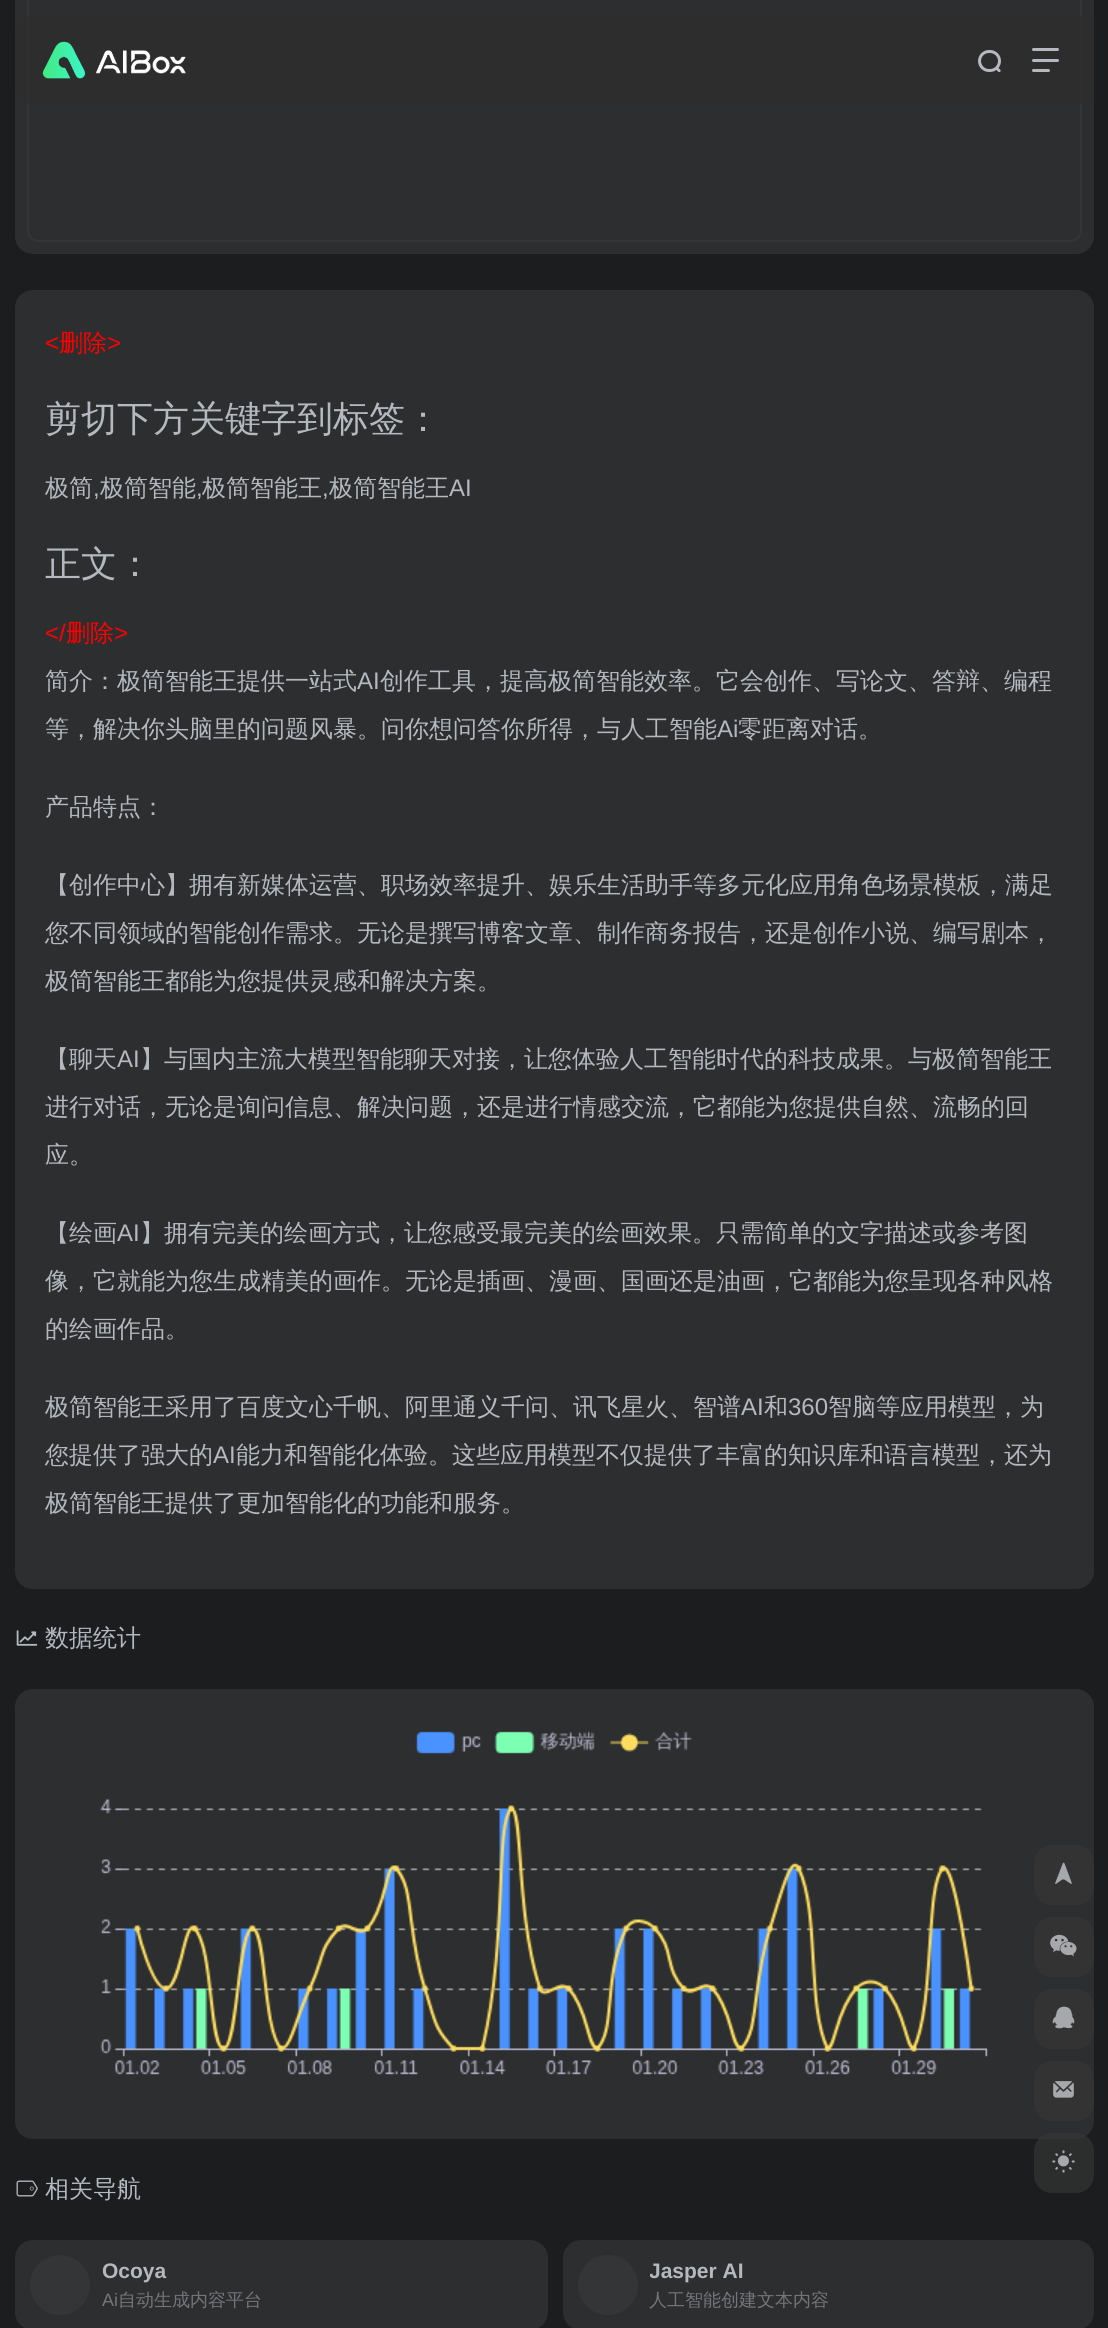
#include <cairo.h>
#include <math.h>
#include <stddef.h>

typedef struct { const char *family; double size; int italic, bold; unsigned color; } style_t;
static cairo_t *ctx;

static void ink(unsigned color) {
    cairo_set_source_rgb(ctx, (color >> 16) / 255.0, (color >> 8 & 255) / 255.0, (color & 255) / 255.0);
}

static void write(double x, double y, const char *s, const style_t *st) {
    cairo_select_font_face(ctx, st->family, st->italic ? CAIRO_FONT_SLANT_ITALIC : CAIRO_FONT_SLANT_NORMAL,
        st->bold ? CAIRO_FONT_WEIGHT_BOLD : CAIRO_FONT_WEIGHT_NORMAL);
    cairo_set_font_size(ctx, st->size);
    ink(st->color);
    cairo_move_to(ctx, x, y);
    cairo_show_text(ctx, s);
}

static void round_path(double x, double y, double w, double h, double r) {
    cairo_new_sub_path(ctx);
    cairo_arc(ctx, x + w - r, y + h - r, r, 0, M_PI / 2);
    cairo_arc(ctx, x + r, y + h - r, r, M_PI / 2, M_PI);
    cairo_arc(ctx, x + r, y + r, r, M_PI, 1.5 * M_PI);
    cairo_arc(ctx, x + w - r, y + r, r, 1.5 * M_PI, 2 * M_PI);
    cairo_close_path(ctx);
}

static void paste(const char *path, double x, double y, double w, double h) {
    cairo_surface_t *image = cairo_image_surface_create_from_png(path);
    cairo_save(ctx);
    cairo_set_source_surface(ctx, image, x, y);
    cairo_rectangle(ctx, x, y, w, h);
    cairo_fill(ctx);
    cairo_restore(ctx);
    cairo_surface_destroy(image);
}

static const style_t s1 = {"Liberation Sans", 24, 0, 0, 0xff0000};
static const style_t s2 = {"WenQuanYi Zen Hei Medium", 24, 0, 0, 0xff0000};
static const style_t s3 = {"WenQuanYi Zen Hei Medium", 36, 0, 0, 0xb4b8bf};
static const style_t s4 = {"WenQuanYi Zen Hei Medium", 24, 0, 0, 0xb4b8bf};
static const style_t s5 = {"Liberation Sans", 24, 0, 0, 0xb4b8bf};
static const style_t s6 = {"Liberation Sans", 21, 0, 1, 0xb4b8bf};
static const style_t s7 = {"Liberation Sans", 18, 0, 0, 0x73757a};
static const style_t s8 = {"WenQuanYi Zen Hei Medium", 18, 0, 0, 0x73757a};

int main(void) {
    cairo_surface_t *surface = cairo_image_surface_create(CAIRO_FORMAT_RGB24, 1108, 2328);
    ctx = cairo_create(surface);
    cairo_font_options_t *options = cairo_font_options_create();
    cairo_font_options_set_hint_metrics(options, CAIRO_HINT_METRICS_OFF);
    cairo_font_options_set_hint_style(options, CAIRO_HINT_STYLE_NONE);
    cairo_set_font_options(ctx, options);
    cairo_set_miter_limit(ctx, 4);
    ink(0x1b1d1f);
    cairo_paint(ctx);
    ink(0x2d2e2f);
    round_path(15, -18, 1079, 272, 18);
    cairo_fill(ctx);
    round_path(28, -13, 1053, 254, 11);
    ink(0x343536);
    cairo_stroke(ctx);
    cairo_set_source_rgba(ctx, 0.18, 0.18, 0.18, 0.65);
    round_path(15, 15, 1079, 90, 18);
    cairo_fill(ctx);
    paste("pic1.png", 42, 41, 144, 38);
    round_path(979.5, 51.5, 20, 19, 9.5);
    ink(0xb4b8bf);
    cairo_set_line_width(ctx, 3);
    cairo_stroke(ctx);
    cairo_new_path(ctx);
    cairo_move_to(ctx, 998, 67.5);
    cairo_line_to(ctx, 1000.5, 70);
    cairo_curve_to(ctx, 1001, 71.5, 1000, 72.5, 998.5, 72);
    cairo_line_to(ctx, 996, 69.5);
    cairo_curve_to(ctx, 995, 68, 997, 66.5, 998, 67.5);
    cairo_close_path(ctx);
    cairo_fill(ctx);
    round_path(1032, 48, 27, 3, 1.5);
    cairo_fill(ctx);
    round_path(1032, 59, 27, 3, 1.5);
    cairo_fill(ctx);
    round_path(1032, 69, 18, 3, 1.5);
    cairo_fill(ctx);
    ink(0x2d2e2f);
    round_path(15, 290, 1079, 1299, 18);
    cairo_fill(ctx);
    write(45, 351, "<", &s1);
    write(59, 351, "删除", &s2);
    write(107, 351, ">", &s1);
    write(45, 431, "剪切下方关键字到标签：", &s3);
    write(45, 496, "极简", &s4);
    write(93, 496, ",", &s5);
    write(100, 496, "极简智能", &s4);
    write(196, 496, ",", &s5);
    write(202, 496, "极简智能王", &s4);
    write(322, 496, ",", &s5);
    write(329, 496, "极简智能王", &s4);
    write(449, 496, "AI", &s5);
    write(45, 576, "正文：", &s3);
    write(45, 641, "</", &s1);
    write(66, 641, "删除", &s2);
    write(114, 641, ">", &s1);
    write(45, 689, "简介：极简智能王提供一站式", &s4);
    write(357, 689, "AI", &s5);
    write(380, 689, "创作工具，提高极简智能效率。它会创作、写论文、答辩、编程", &s4);
    write(45, 737, "等，解决你头脑里的问题风暴。问你想问答你所得，与人工智能", &s4);
    write(717, 737, "Ai", &s5);
    write(738, 737, "零距离对话。", &s4);
    write(45, 815, "产品特点：", &s4);
    write(45, 893, "【创作中心】拥有新媒体运营、职场效率提升、娱乐生活助手等多元化应用角色场景模板，满足", &s4);
    write(45, 941, "您不同领域的智能创作需求。无论是撰写博客文章、制作商务报告，还是创作小说、编写剧本，", &s4);
    write(45, 989, "极简智能王都能为您提供灵感和解决方案。", &s4);
    write(45, 1067, "【聊天", &s4);
    write(117, 1067, "AI", &s5);
    write(140, 1067, "】与国内主流大模型智能聊天对接，让您体验人工智能时代的科技成果。与极简智能王", &s4);
    write(45, 1115, "进行对话，无论是询问信息、解决问题，还是进行情感交流，它都能为您提供自然、流畅的回", &s4);
    write(45, 1163, "应。", &s4);
    write(45, 1241, "【绘画", &s4);
    write(117, 1241, "AI", &s5);
    write(140, 1241, "】拥有完美的绘画方式，让您感受最完美的绘画效果。只需简单的文字描述或参考图", &s4);
    write(45, 1289, "像，它就能为您生成精美的画作。无论是插画、漫画、国画还是油画，它都能为您呈现各种风格", &s4);
    write(45, 1337, "的绘画作品。", &s4);
    write(45, 1415, "极简智能王采用了百度文心千帆、阿里通义千问、讯飞星火、智谱", &s4);
    write(741, 1415, "AI", &s5);
    write(764, 1415, "和", &s4);
    write(788, 1415, "360", &s5);
    write(828, 1415, "智脑等应用模型，为", &s4);
    write(45, 1463, "您提供了强大的", &s4);
    write(213, 1463, "AI", &s5);
    write(236, 1463, "能力和智能化体验。这些应用模型不仅提供了丰富的知识库和语言模型，还为", &s4);
    write(45, 1511, "极简智能王提供了更加智能化的功能和服务。", &s4);
    paste("pic2.png", 16, 1630, 22, 16);
    write(45, 1646, "数据统计", &s4);
    ink(0x2d2e2f);
    round_path(15, 1689, 1079, 450, 18);
    cairo_fill(ctx);
    paste("pic3.png", 100, 1731, 888, 344);
    paste("pic4.png", 16, 2180, 22, 17);
    write(45, 2197, "相关导航", &s4);
    ink(0x2d2e2f);
    round_path(15, 2240, 533, 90, 18);
    cairo_fill(ctx);
    ink(0x343536);
    cairo_arc(ctx, 60, 2285, 30, 0, 2 * M_PI);
    cairo_fill(ctx);
    write(102, 2278, "Ocoya", &s6);
    write(102, 2306, "Ai", &s7);
    write(118, 2306, "自动生成内容平台", &s8);
    ink(0x2d2e2f);
    round_path(563, 2240, 531, 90, 18);
    cairo_fill(ctx);
    ink(0x343536);
    cairo_arc(ctx, 608, 2285, 30, 0, 2 * M_PI);
    cairo_fill(ctx);
    cairo_save(ctx);
    cairo_rectangle(ctx, 650, 2255, 429, 31);
    cairo_clip(ctx);
    write(649, 2278, "Jasper AI", &s6);
    cairo_restore(ctx);
    write(649, 2306, "人工智能创建文本内容", &s8);
    ink(0x333334);
    round_path(1034, 1845, 60, 60, 18);
    cairo_fill(ctx);
    paste("pic5.png", 1055, 1862, 17, 22);
    round_path(1034, 1917, 60, 60, 18);
    cairo_fill(ctx);
    paste("pic6.png", 1050, 1934, 27, 22);
    round_path(1034, 1989, 60, 60, 18);
    cairo_fill(ctx);
    paste("pic7.png", 1052, 2006, 23, 23);
    round_path(1034, 2061, 60, 60, 18);
    cairo_fill(ctx);
    paste("pic8.png", 1053, 2081, 21, 17);
    cairo_set_source_rgba(ctx, 0.216, 0.216, 0.216, 0.6);
    round_path(1034, 2133, 60, 60, 18);
    cairo_fill(ctx);
    paste("pic9.png", 1052, 2150, 23, 23);
    cairo_surface_write_to_png(surface, "screenshot.png");
    cairo_font_options_destroy(options);
    cairo_destroy(ctx);
    cairo_surface_destroy(surface);
    return 0;
}
